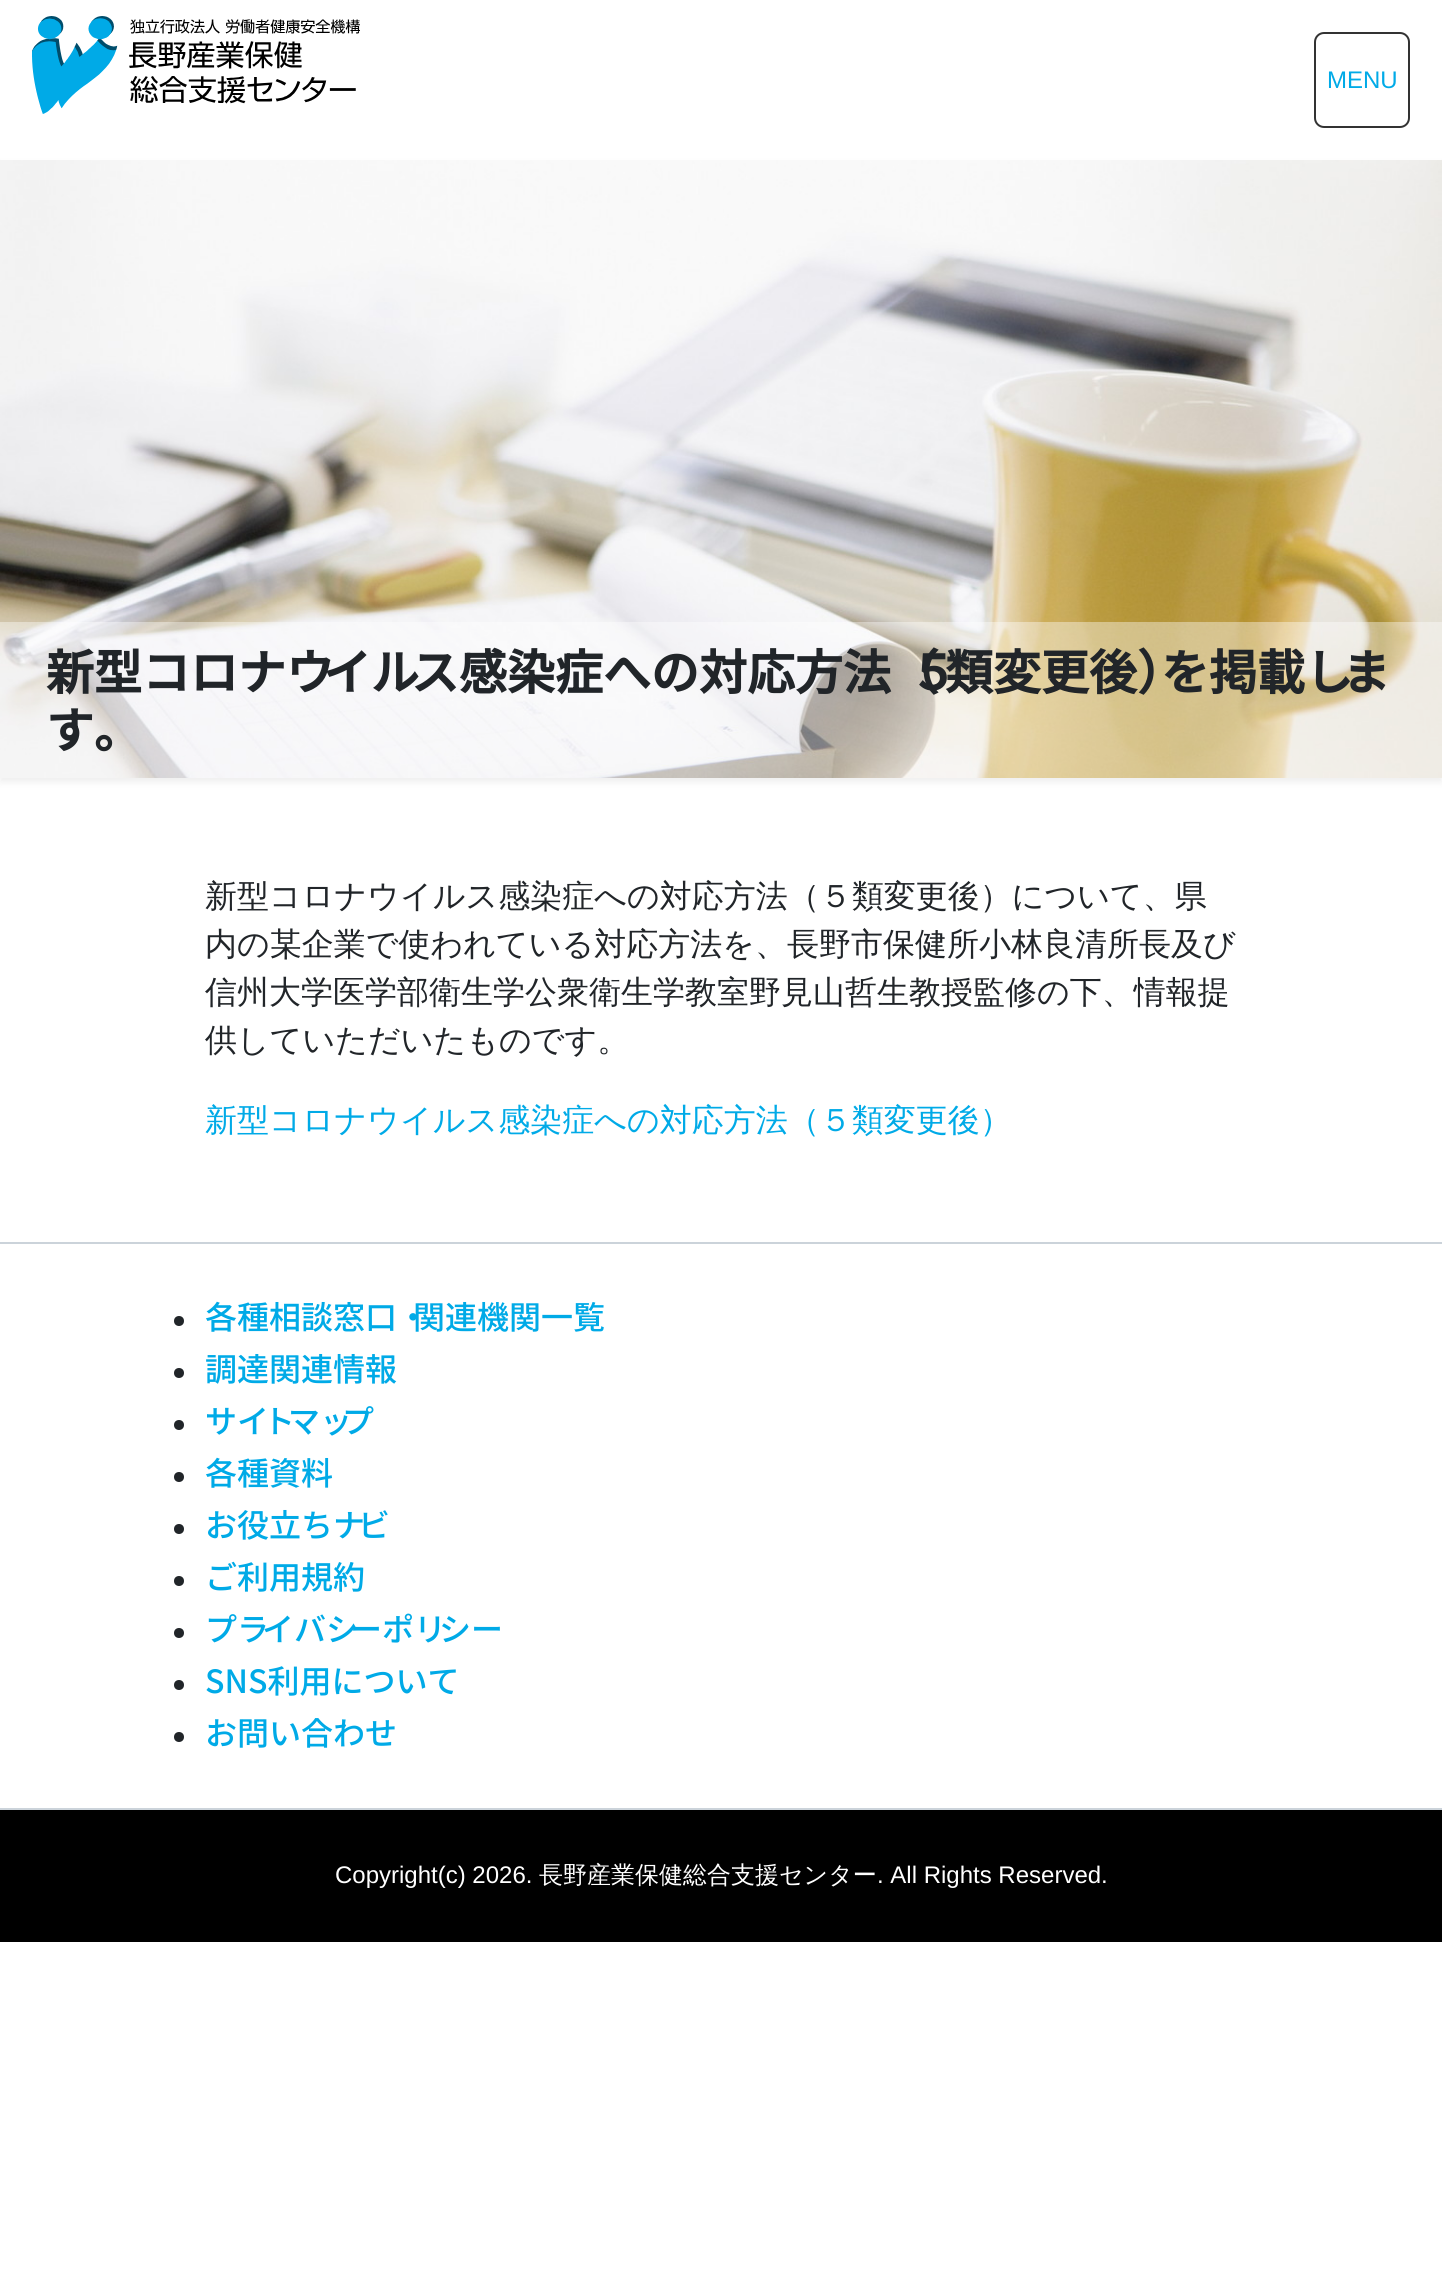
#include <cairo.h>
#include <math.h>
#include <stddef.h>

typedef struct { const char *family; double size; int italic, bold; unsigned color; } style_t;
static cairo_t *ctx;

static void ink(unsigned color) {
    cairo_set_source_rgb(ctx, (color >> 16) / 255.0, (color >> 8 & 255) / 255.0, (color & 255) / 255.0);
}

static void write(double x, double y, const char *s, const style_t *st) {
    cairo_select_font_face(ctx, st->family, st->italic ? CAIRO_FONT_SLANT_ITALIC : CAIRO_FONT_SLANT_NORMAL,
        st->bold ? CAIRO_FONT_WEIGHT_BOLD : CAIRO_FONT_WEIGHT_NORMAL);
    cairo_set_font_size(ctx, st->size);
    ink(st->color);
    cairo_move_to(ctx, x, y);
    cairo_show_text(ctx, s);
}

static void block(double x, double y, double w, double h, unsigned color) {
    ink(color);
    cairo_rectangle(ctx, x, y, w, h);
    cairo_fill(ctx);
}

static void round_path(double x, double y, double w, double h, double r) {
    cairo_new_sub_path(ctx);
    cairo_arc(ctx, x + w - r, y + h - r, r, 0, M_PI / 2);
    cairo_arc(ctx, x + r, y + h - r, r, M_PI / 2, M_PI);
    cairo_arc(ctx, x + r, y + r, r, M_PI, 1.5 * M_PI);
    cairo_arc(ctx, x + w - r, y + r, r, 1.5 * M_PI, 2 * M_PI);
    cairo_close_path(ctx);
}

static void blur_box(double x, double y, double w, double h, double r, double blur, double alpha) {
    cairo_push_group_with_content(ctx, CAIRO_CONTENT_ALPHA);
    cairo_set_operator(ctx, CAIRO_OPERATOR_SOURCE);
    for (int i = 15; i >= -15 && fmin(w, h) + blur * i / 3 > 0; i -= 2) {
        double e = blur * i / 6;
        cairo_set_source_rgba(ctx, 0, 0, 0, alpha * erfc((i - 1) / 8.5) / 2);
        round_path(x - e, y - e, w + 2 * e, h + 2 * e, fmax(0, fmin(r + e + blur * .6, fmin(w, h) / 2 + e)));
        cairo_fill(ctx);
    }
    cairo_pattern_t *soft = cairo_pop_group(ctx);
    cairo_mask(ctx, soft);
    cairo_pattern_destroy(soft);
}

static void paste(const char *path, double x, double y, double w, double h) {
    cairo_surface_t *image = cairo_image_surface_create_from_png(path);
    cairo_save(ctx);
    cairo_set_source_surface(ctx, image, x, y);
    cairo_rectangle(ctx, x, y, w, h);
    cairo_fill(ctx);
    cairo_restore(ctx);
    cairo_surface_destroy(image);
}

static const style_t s1 = {"Liberation Sans", 24, 0, 0, 0x00aae7};
static const style_t s2 = {"Noto Sans JP", 48, 0, 1, 0x212529};
static const style_t s3 = {"WenQuanYi Zen Hei Medium", 32, 0, 0, 0x212529};
static const style_t s4 = {"WenQuanYi Zen Hei Medium", 32, 0, 0, 0x00aae7};
static const style_t s5 = {"Noto Sans JP Medium", 32, 0, 0, 0x00aae7};
static const style_t s6 = {"Liberation Sans", 24, 0, 0, 0xffffff};
static const style_t s7 = {"WenQuanYi Zen Hei Medium", 24, 0, 0, 0xffffff};

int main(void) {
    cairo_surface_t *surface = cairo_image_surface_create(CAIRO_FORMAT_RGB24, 1442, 2283);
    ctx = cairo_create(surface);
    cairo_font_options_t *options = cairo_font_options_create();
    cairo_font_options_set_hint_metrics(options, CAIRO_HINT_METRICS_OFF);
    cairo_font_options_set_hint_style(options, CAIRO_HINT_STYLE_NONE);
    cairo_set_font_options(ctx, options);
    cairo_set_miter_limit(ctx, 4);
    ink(0xffffff);
    cairo_paint(ctx);
    paste("pic1.png", 32, 16, 328, 98);
    round_path(1315, 33, 94, 94, 9);
    ink(0x333333);
    cairo_stroke(ctx);
    write(1327, 88, "MENU", &s1);
    ink(0x000000);
    blur_box(0, 164, 1442, 618, 0, 4, 0.07);
    paste("pic2.png", 0, 160, 1442, 618);
    cairo_set_source_rgba(ctx, 1, 1, 1, 0.4);
    cairo_rectangle(ctx, 0, 622, 1442, 156);
    cairo_fill(ctx);
    write(46, 690, "新型コロナウ", &s2);
    write(323, 690, "イル", &s2);
    write(411, 690, "ス感染症への対応方法（", &s2);
    write(909, 690, "５", &s2);
    write(945, 690, "類変更後）", &s2);
    write(1161, 690, "を掲載し", &s2);
    write(1342, 690, "ま", &s2);
    write(46, 748, "す。", &s2);
    write(205, 907, "新型コロナウイルス感染症への対応方法（５類変更後）について、県", &s3);
    write(205, 955, "内の某企業で使われている対応方法を、長野市保健所小林良清所長及び", &s3);
    write(205, 1003, "信州大学医学部衛生学公衆衛生学教室野見山哲生教授監修の下、情報提", &s3);
    write(205, 1051, "供していただいたものです。", &s3);
    write(205, 1131, "新型コロナウイルス感染症への対応方法（５類変更後）", &s4);
    block(0, 1242, 1442, 2, 0xcbd3da);
    ink(0x212529);
    cairo_new_path(ctx);
    cairo_arc(ctx, 179, 1321, 5, 0, 2 * M_PI);
    cairo_fill(ctx);
    write(205, 1329, "各種相談窓口・", &s5);
    write(413, 1329, "関連機関一覧", &s5);
    ink(0x212529);
    cairo_new_path(ctx);
    cairo_arc(ctx, 179, 1373, 5, 0, 2 * M_PI);
    cairo_fill(ctx);
    write(205, 1381, "調達関連情報", &s5);
    ink(0x212529);
    cairo_new_path(ctx);
    cairo_arc(ctx, 179, 1425, 5, 0, 2 * M_PI);
    cairo_fill(ctx);
    write(205, 1433, "サイ", &s5);
    write(263, 1433, "ト", &s5);
    write(288, 1433, "マッ", &s5);
    write(342, 1433, "プ", &s5);
    ink(0x212529);
    cairo_new_path(ctx);
    cairo_arc(ctx, 179, 1477, 5, 0, 2 * M_PI);
    cairo_fill(ctx);
    write(205, 1485, "各種資料", &s5);
    ink(0x212529);
    cairo_new_path(ctx);
    cairo_arc(ctx, 179, 1529, 5, 0, 2 * M_PI);
    cairo_fill(ctx);
    write(205, 1537, "お役立ちナ", &s5);
    write(358, 1537, "ビ", &s5);
    ink(0x212529);
    cairo_new_path(ctx);
    cairo_arc(ctx, 179, 1581, 5, 0, 2 * M_PI);
    cairo_fill(ctx);
    write(205, 1589, "ご利用規約", &s5);
    ink(0x212529);
    cairo_new_path(ctx);
    cairo_arc(ctx, 179, 1633, 5, 0, 2 * M_PI);
    cairo_fill(ctx);
    write(205, 1641, "プラ", &s5);
    write(262, 1641, "イバシ", &s5);
    write(350, 1641, "ーポリ", &s5);
    write(439, 1641, "シー", &s5);
    ink(0x212529);
    cairo_new_path(ctx);
    cairo_arc(ctx, 179, 1685, 5, 0, 2 * M_PI);
    cairo_fill(ctx);
    write(205, 1693, "SNS利用について", &s5);
    ink(0x212529);
    cairo_new_path(ctx);
    cairo_arc(ctx, 179, 1737, 5, 0, 2 * M_PI);
    cairo_fill(ctx);
    write(205, 1745, "お問い合わせ", &s5);
    block(0, 1810, 1442, 132, 0x000000);
    block(0, 1808, 1442, 2, 0xcbd3da);
    write(335, 1883, "Copyright(c) 2026.", &s6);
    write(539, 1883, "長野産業保健総合支援センター", &s7);
    write(877, 1883, ". All Rights Reserved.", &s6);
    cairo_surface_write_to_png(surface, "screenshot.png");
    cairo_font_options_destroy(options);
    cairo_destroy(ctx);
    cairo_surface_destroy(surface);
    return 0;
}
